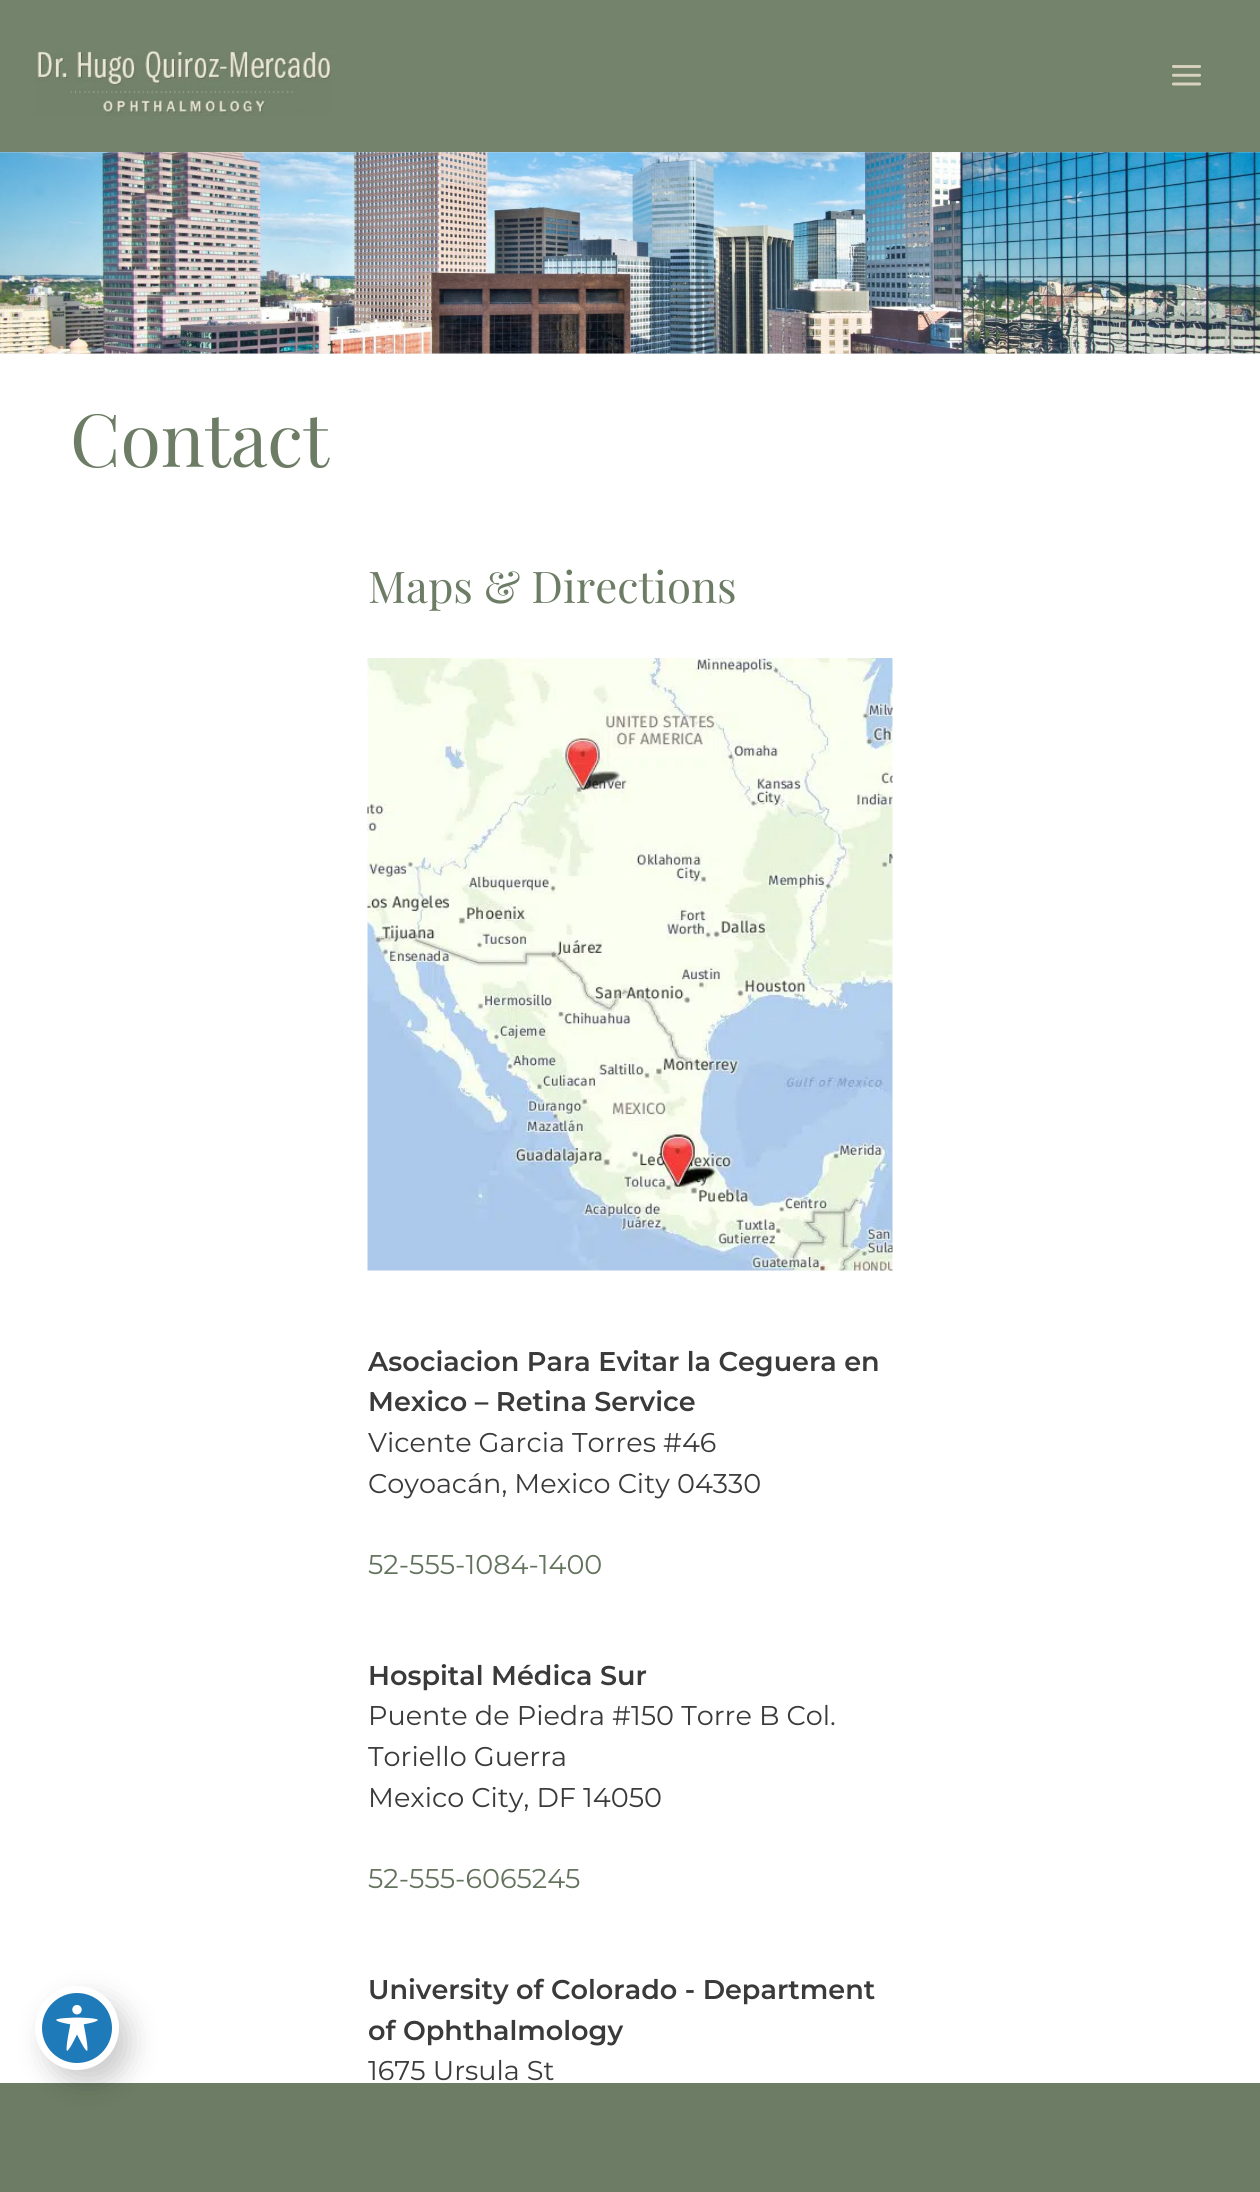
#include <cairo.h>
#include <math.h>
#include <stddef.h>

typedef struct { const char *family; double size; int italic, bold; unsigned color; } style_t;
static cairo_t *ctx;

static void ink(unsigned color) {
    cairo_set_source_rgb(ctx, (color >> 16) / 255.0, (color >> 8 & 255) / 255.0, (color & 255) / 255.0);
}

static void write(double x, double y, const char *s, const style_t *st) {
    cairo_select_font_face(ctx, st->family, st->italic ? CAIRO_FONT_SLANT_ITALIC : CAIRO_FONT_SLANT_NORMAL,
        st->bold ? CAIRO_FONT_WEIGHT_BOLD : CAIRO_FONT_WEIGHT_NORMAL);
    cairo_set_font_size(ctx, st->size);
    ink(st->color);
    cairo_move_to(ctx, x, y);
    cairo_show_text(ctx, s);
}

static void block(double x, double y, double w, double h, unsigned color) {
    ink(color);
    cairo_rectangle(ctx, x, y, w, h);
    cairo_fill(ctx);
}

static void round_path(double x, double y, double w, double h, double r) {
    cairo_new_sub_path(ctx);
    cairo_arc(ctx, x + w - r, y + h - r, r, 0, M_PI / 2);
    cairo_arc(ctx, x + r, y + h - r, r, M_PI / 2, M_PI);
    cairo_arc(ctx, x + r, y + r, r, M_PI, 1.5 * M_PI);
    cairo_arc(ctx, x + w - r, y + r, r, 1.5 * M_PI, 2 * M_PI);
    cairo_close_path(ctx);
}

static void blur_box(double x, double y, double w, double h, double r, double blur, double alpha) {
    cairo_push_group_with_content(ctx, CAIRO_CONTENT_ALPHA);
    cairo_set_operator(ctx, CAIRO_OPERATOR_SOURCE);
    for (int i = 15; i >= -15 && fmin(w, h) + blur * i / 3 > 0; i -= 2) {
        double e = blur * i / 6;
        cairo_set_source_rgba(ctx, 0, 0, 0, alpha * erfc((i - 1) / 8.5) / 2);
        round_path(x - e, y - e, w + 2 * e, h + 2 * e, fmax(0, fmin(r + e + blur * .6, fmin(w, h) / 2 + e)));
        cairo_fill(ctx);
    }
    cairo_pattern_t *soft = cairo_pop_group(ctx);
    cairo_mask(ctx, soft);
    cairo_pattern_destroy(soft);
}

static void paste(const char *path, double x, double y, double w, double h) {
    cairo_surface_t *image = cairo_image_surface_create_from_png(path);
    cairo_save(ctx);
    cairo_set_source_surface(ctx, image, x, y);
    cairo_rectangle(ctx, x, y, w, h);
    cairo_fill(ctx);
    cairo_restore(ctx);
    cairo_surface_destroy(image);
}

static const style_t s1 = {"Playfair Display", 73.5, 0, 0, 0x6d7d65};
static const style_t s2 = {"Playfair Display", 43.75, 0, 0, 0x6d7d65};
static const style_t s3 = {"Montserrat SemiBold", 27.1, 0, 0, 0x3a3a3a};
static const style_t s4 = {"Montserrat", 27.1, 0, 0, 0x3a3a3a};
static const style_t s5 = {"Montserrat", 27.1, 0, 0, 0x64735e};

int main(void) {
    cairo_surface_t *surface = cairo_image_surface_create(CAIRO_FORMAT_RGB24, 1260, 2192);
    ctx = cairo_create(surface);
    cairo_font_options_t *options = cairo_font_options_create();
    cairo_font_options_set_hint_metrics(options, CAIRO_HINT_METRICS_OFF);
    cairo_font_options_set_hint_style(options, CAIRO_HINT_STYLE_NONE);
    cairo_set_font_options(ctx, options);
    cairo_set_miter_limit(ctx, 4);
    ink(0xffffff);
    cairo_paint(ctx);
    block(0, 0, 1260, 152, 0x74836b);
    paste("pic1.png", 35, 51, 297, 65);
    paste("pic2.png", 1172, 65, 29, 21);
    block(0, 152, 1260, 202, 0xeaeaea);
    paste("pic3.png", 0, 152, 1260, 202);
    write(70, 467, "Contact", &s1);
    write(368, 603, "Maps & Directions", &s2);
    paste("pic4.png", 367, 658, 526, 613);
    write(368, 1371, "Asociacion Para Evitar la Ceguera en", &s3);
    write(368, 1411, "Mexico – Retina Service", &s3);
    write(368, 1452, "Vicente Garcia Torres #46", &s4);
    write(368, 1493, "Coyoacán, Mexico City 04330", &s4);
    write(368, 1574, "52-555-1084-1400", &s5);
    write(368, 1685, "Hospital Médica Sur", &s3);
    write(368, 1725, "Puente de Piedra #150 Torre B Col.", &s4);
    write(368, 1766, "Toriello Guerra", &s4);
    write(368, 1807, "Mexico City, DF 14050", &s4);
    write(368, 1888, "52-555-6065245", &s5);
    write(368, 1999, "University of Colorado - Department", &s3);
    write(368, 2040, "of Ophthalmology", &s3);
    write(368, 2080, "1675 Ursula St", &s4);
    block(0, 2083, 1260, 109, 0x6d7d65);
    ink(0x000000);
    blur_box(46, 2000, 84, 84, 42, 14, 0.2);
    ink(0x1e7ab9);
    cairo_arc(ctx, 77, 2028, 38.5, 0, 2 * M_PI);
    cairo_fill_preserve(ctx);
    ink(0xffffff);
    cairo_set_line_width(ctx, 7);
    cairo_stroke(ctx);
    paste("pic5.png", 56, 2005, 42, 46);
    cairo_surface_write_to_png(surface, "screenshot.png");
    cairo_font_options_destroy(options);
    cairo_destroy(ctx);
    cairo_surface_destroy(surface);
    return 0;
}
